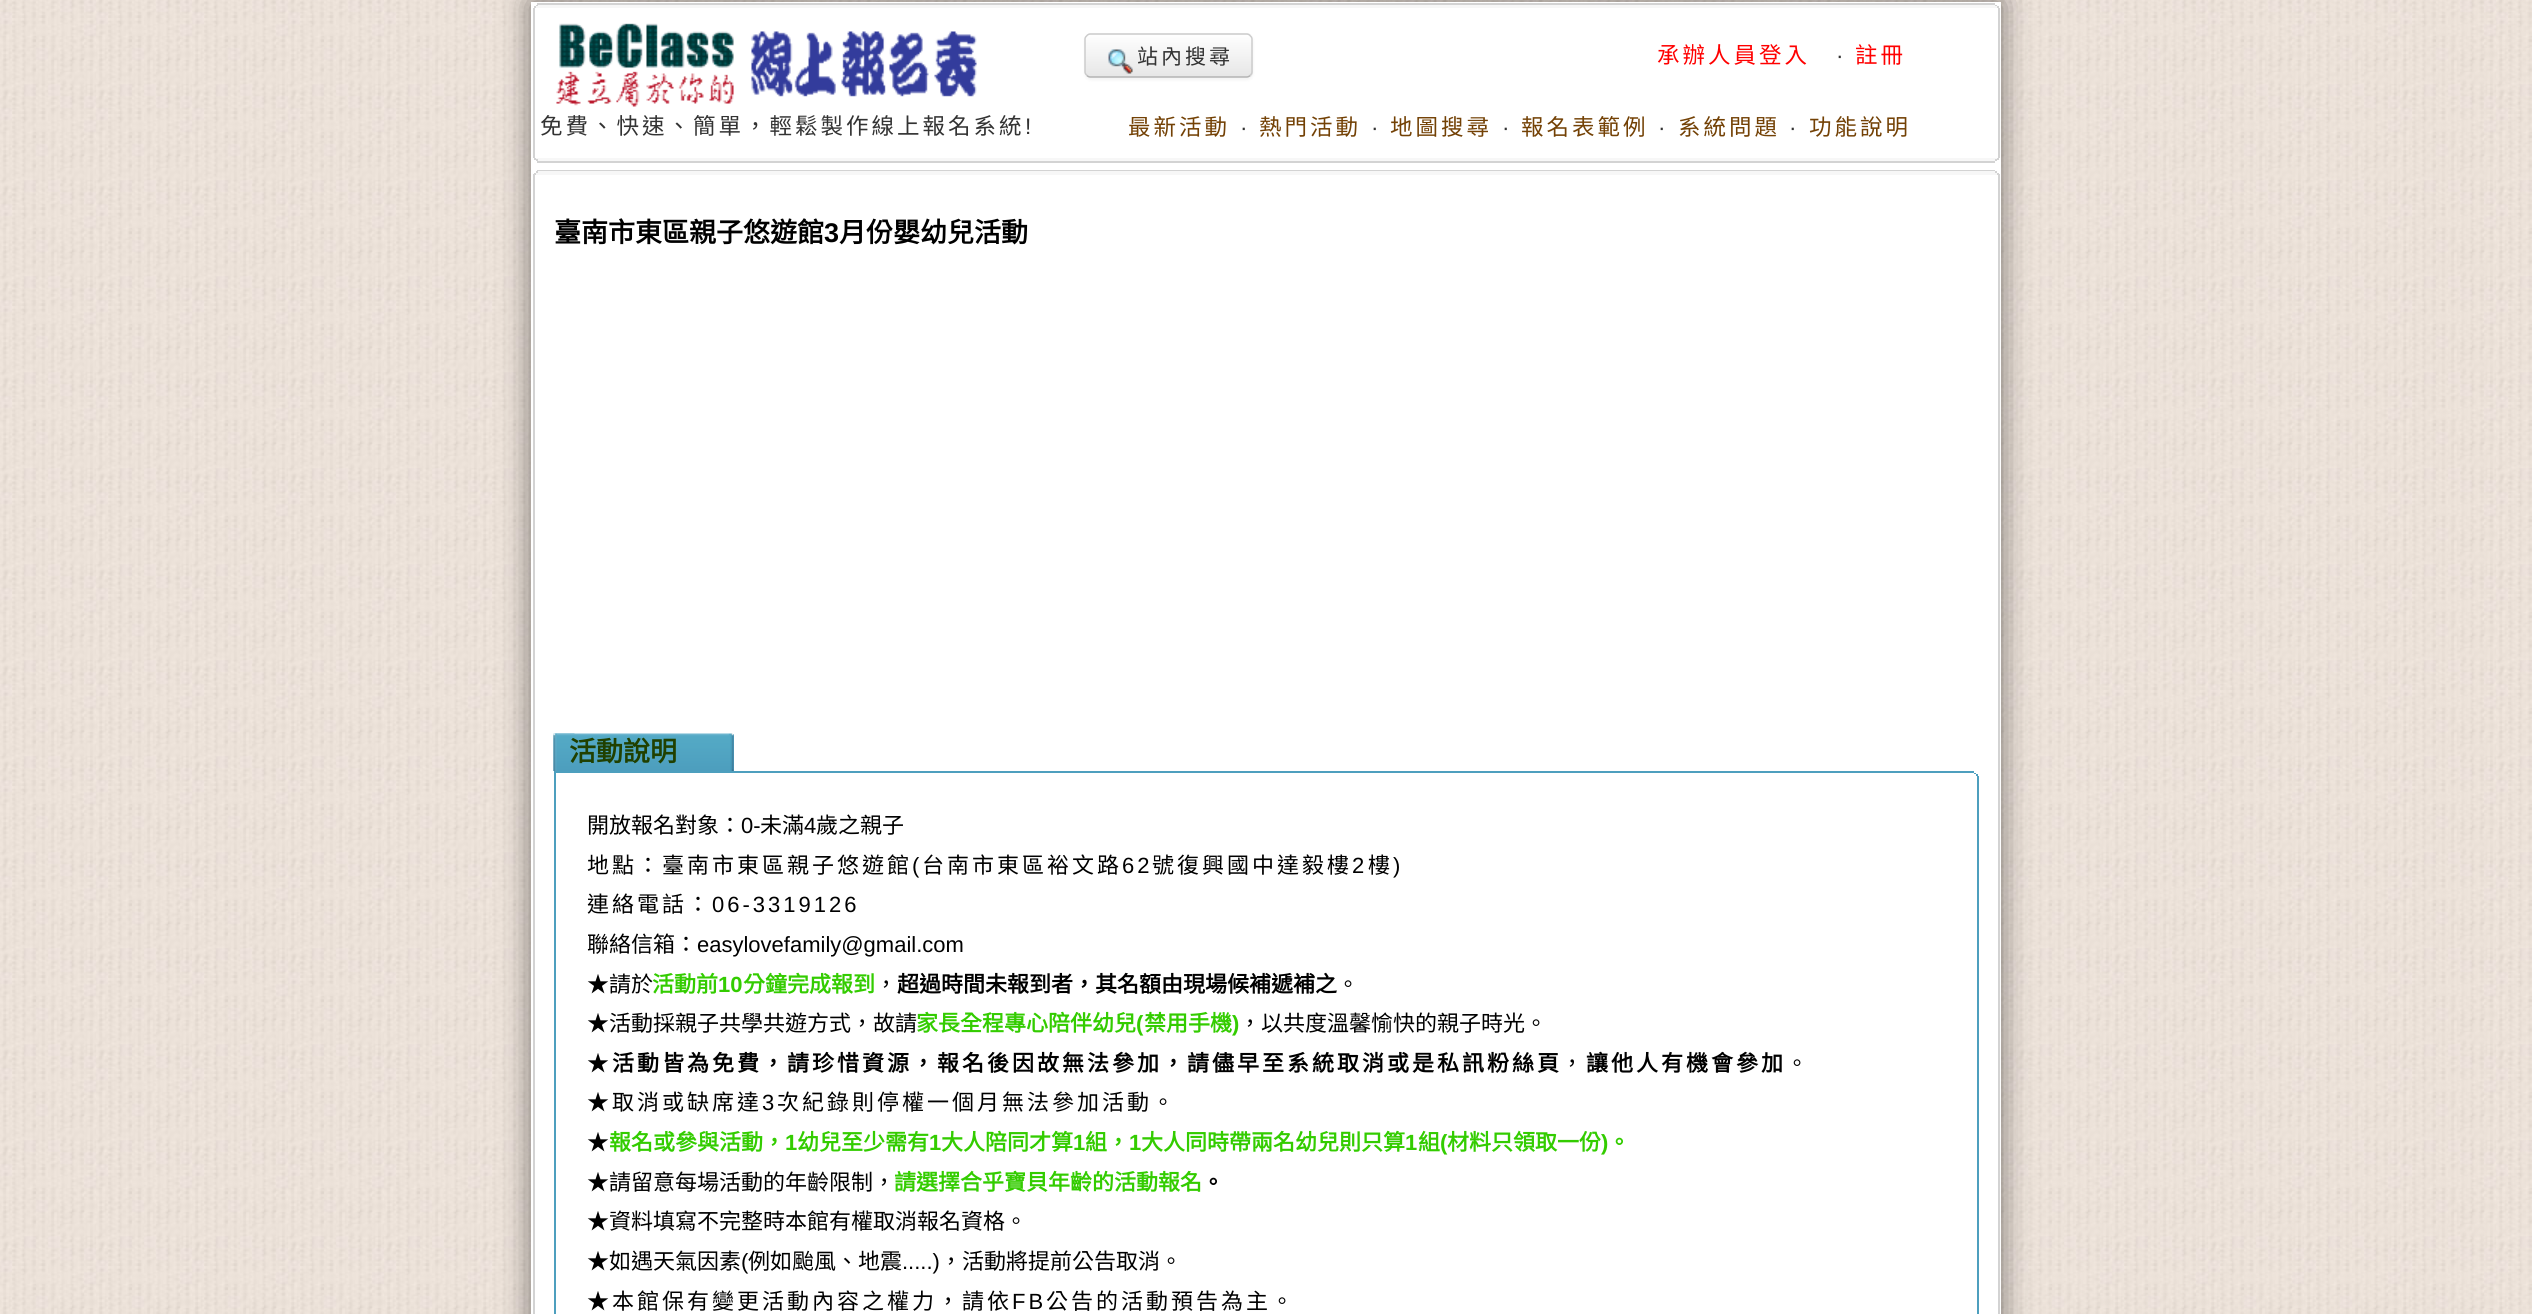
#include <cairo.h>
#include <math.h>
#include <stddef.h>

typedef struct { const char *family; double size; int italic, bold; unsigned color; } style_t;
static cairo_t *ctx;

static void ink(unsigned color) {
    cairo_set_source_rgb(ctx, (color >> 16) / 255.0, (color >> 8 & 255) / 255.0, (color & 255) / 255.0);
}

static void write(double x, double y, const char *s, const style_t *st) {
    cairo_select_font_face(ctx, st->family, st->italic ? CAIRO_FONT_SLANT_ITALIC : CAIRO_FONT_SLANT_NORMAL,
        st->bold ? CAIRO_FONT_WEIGHT_BOLD : CAIRO_FONT_WEIGHT_NORMAL);
    cairo_set_font_size(ctx, st->size);
    ink(st->color);
    cairo_move_to(ctx, x, y);
    cairo_show_text(ctx, s);
}

static void write_spaced(double x, double y, const char *s, double letter, double word) {
    cairo_move_to(ctx, x, y);
    while (*s) {
        char ch[5] = {0};
        int n = 0;
        do ch[n++] = *s++; while ((*s & 0xC0) == 0x80);
        cairo_show_text(ctx, ch);
        cairo_rel_move_to(ctx, letter + word * (*ch == ' '), 0);
    }
}

static void block(double x, double y, double w, double h, unsigned color) {
    ink(color);
    cairo_rectangle(ctx, x, y, w, h);
    cairo_fill(ctx);
}

static void round_path(double x, double y, double w, double h, double r) {
    cairo_new_sub_path(ctx);
    cairo_arc(ctx, x + w - r, y + h - r, r, 0, M_PI / 2);
    cairo_arc(ctx, x + r, y + h - r, r, M_PI / 2, M_PI);
    cairo_arc(ctx, x + r, y + r, r, M_PI, 1.5 * M_PI);
    cairo_arc(ctx, x + w - r, y + r, r, 1.5 * M_PI, 2 * M_PI);
    cairo_close_path(ctx);
}

static void blur_box(double x, double y, double w, double h, double r, double blur, double alpha) {
    cairo_push_group_with_content(ctx, CAIRO_CONTENT_ALPHA);
    cairo_set_operator(ctx, CAIRO_OPERATOR_SOURCE);
    for (int i = 15; i >= -15 && fmin(w, h) + blur * i / 3 > 0; i -= 2) {
        double e = blur * i / 6;
        cairo_set_source_rgba(ctx, 0, 0, 0, alpha * erfc((i - 1) / 8.5) / 2);
        round_path(x - e, y - e, w + 2 * e, h + 2 * e, fmax(0, fmin(r + e + blur * .6, fmin(w, h) / 2 + e)));
        cairo_fill(ctx);
    }
    cairo_pattern_t *soft = cairo_pop_group(ctx);
    cairo_mask(ctx, soft);
    cairo_pattern_destroy(soft);
}

static void paste(const char *path, double x, double y, double w, double h) {
    cairo_surface_t *image = cairo_image_surface_create_from_png(path);
    cairo_save(ctx);
    cairo_set_source_surface(ctx, image, x, y);
    cairo_rectangle(ctx, x, y, w, h);
    cairo_fill(ctx);
    cairo_restore(ctx);
    cairo_surface_destroy(image);
}

static const style_t s1 = {"Noto Sans CJK TC", 27, 0, 1, 0x000000};
static const style_t s2 = {"Liberation Sans", 27, 0, 1, 0x000000};
static const style_t s3 = {"Noto Sans CJK TC", 27, 0, 1, 0x204000};
static const style_t s4 = {"Noto Sans CJK TC", 22, 0, 0, 0x000000};
static const style_t s5 = {"Liberation Sans", 22, 0, 0, 0x000000};
static const style_t s6 = {"Noto Sans CJK TC", 22, 0, 1, 0x33cc00};
static const style_t s7 = {"Liberation Sans", 22, 0, 1, 0x33cc00};
static const style_t s8 = {"Noto Sans CJK TC", 22, 0, 1, 0x000000};

int main(void) {
    cairo_surface_t *surface = cairo_image_surface_create(CAIRO_FORMAT_RGB24, 2532, 1314);
    ctx = cairo_create(surface);
    cairo_font_options_t *options = cairo_font_options_create();
    cairo_font_options_set_hint_metrics(options, CAIRO_HINT_METRICS_OFF);
    cairo_font_options_set_hint_style(options, CAIRO_HINT_STYLE_NONE);
    cairo_set_font_options(ctx, options);
    cairo_set_miter_limit(ctx, 4);
    cairo_pattern_t *gradient;
    ink(0xffffff);
    cairo_paint(ctx);
    paste("pic1.png", 0, 0, 2532, 1314);
    ink(0x000000);
    blur_box(531, 2, 1470, 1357, 0, 15, 0.5);
    block(531, 2, 1470, 1312, 0xffffff);
    block(537, 3, 1458, 2, 0xd3d3d3);
    block(536, 5, 1461, 1, 0xf7f7f7);
    block(1995, 5, 2, 1, 0xd3d3d3);
    block(536, 5, 2, 1, 0xd3d3d3);
    block(534, 6, 1464, 2, 0xf7f7f7);
    block(1997, 6, 2, 2, 0xd3d3d3);
    block(534, 6, 2, 2, 0xd3d3d3);
    block(1998, 8, 2, 150, 0xd3d3d3);
    block(533, 8, 2, 150, 0xd3d3d3);
    ink(0x000000);
    blur_box(1085, 35, 168, 45, 6, 1.5, 0.05);
    ink(0xf5f5f5);
    round_path(1085, 33, 168, 45, 6);
    cairo_fill(ctx);
    cairo_save(ctx);
    round_path(1085, 33, 168, 45, 6);
    cairo_clip(ctx);
    gradient = cairo_pattern_create_linear(1169, 34, 1169, 77);
    cairo_pattern_add_color_stop_rgba(gradient, 0, 1, 1, 1, 1);
    cairo_pattern_add_color_stop_rgba(gradient, 1, 0.902, 0.902, 0.902, 1);
    cairo_set_source(ctx, gradient);
    cairo_pattern_destroy(gradient);
    cairo_rectangle(ctx, 1085, 35, 168, 42);
    cairo_fill(ctx);
    cairo_restore(ctx);
    cairo_new_path(ctx);
    cairo_move_to(ctx, 1250, 75.5);
    cairo_curve_to(ctx, 1249, 76.5, 1248, 77, 1246.5, 77);
    cairo_line_to(ctx, 1090.5, 77);
    cairo_curve_to(ctx, 1089, 77, 1088, 76.5, 1087, 75.5);
    ink(0xb3b3b3);
    cairo_set_line_width(ctx, 1.5);
    cairo_stroke(ctx);
    cairo_new_path(ctx);
    cairo_move_to(ctx, 1087, 75.5);
    cairo_curve_to(ctx, 1086, 74.5, 1085, 73.5, 1085, 72);
    cairo_line_to(ctx, 1085, 39);
    cairo_curve_to(ctx, 1085, 37.5, 1086, 36.5, 1087, 35.5);
    cairo_curve_to(ctx, 1088, 34.5, 1089, 34, 1090.5, 34);
    cairo_line_to(ctx, 1246.5, 34);
    cairo_curve_to(ctx, 1248, 34, 1249, 34.5, 1250, 35.5);
    cairo_curve_to(ctx, 1251, 36.5, 1252, 37.5, 1252, 39);
    cairo_line_to(ctx, 1252, 72);
    cairo_curve_to(ctx, 1252, 73.5, 1251, 74.5, 1250, 75.5);
    ink(0xcccccc);
    cairo_stroke(ctx);
    paste("pic2.png", 1108, 49, 25, 25);
    cairo_select_font_face(ctx, "Noto Sans CJK TC", CAIRO_FONT_SLANT_NORMAL, CAIRO_FONT_WEIGHT_NORMAL);
    cairo_set_font_size(ctx, 21);
    ink(0x333333);
    write_spaced(1137, 64, "站內搜尋", 3, 0);
    cairo_set_font_size(ctx, 22.5);
    ink(0xff0000);
    write_spaced(1657, 63, "承辦人員登入", 3, 0);
    cairo_select_font_face(ctx, "Liberation Sans", CAIRO_FONT_SLANT_NORMAL, CAIRO_FONT_WEIGHT_NORMAL);
    ink(0x333333);
    write_spaced(1836, 63, "·", 3, 0);
    cairo_select_font_face(ctx, "Noto Sans CJK TC", CAIRO_FONT_SLANT_NORMAL, CAIRO_FONT_WEIGHT_NORMAL);
    ink(0xff0000);
    write_spaced(1855, 63, "註冊", 3, 0);
    paste("pic3.png", 556, 23, 421, 84);
    ink(0x333333);
    write_spaced(540, 134, "免費、快速、簡單，輕鬆製作線上報名系統", 3, 0);
    cairo_select_font_face(ctx, "Liberation Sans", CAIRO_FONT_SLANT_NORMAL, CAIRO_FONT_WEIGHT_NORMAL);
    write_spaced(1025, 134, "!", 3, 0);
    cairo_select_font_face(ctx, "Noto Sans CJK TC", CAIRO_FONT_SLANT_NORMAL, CAIRO_FONT_WEIGHT_NORMAL);
    ink(0x734105);
    write_spaced(1128, 135, "最新活動", 3, 0);
    cairo_select_font_face(ctx, "Liberation Sans", CAIRO_FONT_SLANT_NORMAL, CAIRO_FONT_WEIGHT_NORMAL);
    ink(0x333333);
    write_spaced(1240, 135, "·", 3, 0);
    cairo_select_font_face(ctx, "Noto Sans CJK TC", CAIRO_FONT_SLANT_NORMAL, CAIRO_FONT_WEIGHT_NORMAL);
    ink(0x734105);
    write_spaced(1259, 135, "熱門活動", 3, 0);
    cairo_select_font_face(ctx, "Liberation Sans", CAIRO_FONT_SLANT_NORMAL, CAIRO_FONT_WEIGHT_NORMAL);
    ink(0x333333);
    write_spaced(1371, 135, "·", 3, 0);
    cairo_select_font_face(ctx, "Noto Sans CJK TC", CAIRO_FONT_SLANT_NORMAL, CAIRO_FONT_WEIGHT_NORMAL);
    ink(0x734105);
    write_spaced(1390, 135, "地圖搜尋", 3, 0);
    cairo_select_font_face(ctx, "Liberation Sans", CAIRO_FONT_SLANT_NORMAL, CAIRO_FONT_WEIGHT_NORMAL);
    ink(0x333333);
    write_spaced(1502, 135, "·", 3, 0);
    cairo_select_font_face(ctx, "Noto Sans CJK TC", CAIRO_FONT_SLANT_NORMAL, CAIRO_FONT_WEIGHT_NORMAL);
    ink(0x734105);
    write_spaced(1521, 135, "報名表範例", 3, 0);
    cairo_select_font_face(ctx, "Liberation Sans", CAIRO_FONT_SLANT_NORMAL, CAIRO_FONT_WEIGHT_NORMAL);
    ink(0x333333);
    write_spaced(1658, 135, "·", 3, 0);
    cairo_select_font_face(ctx, "Noto Sans CJK TC", CAIRO_FONT_SLANT_NORMAL, CAIRO_FONT_WEIGHT_NORMAL);
    ink(0x734105);
    write_spaced(1678, 135, "系統問題", 3, 0);
    cairo_select_font_face(ctx, "Liberation Sans", CAIRO_FONT_SLANT_NORMAL, CAIRO_FONT_WEIGHT_NORMAL);
    ink(0x333333);
    write_spaced(1789, 135, "·", 3, 0);
    cairo_select_font_face(ctx, "Noto Sans CJK TC", CAIRO_FONT_SLANT_NORMAL, CAIRO_FONT_WEIGHT_NORMAL);
    ink(0x734105);
    write_spaced(1809, 135, "功能說明", 3, 0);
    block(534, 158, 1464, 1, 0xf7f7f7);
    block(1997, 158, 2, 2, 0xd3d3d3);
    block(534, 158, 2, 2, 0xd3d3d3);
    block(536, 159, 1461, 2, 0xf7f7f7);
    block(1995, 159, 2, 2, 0xd3d3d3);
    block(536, 159, 2, 2, 0xd3d3d3);
    block(537, 161, 1458, 2, 0xd3d3d3);
    block(537, 170, 1458, 1, 0xd3d3d3);
    block(536, 171, 1461, 2, 0xf7f7f7);
    block(1995, 171, 2, 2, 0xd3d3d3);
    block(536, 171, 2, 2, 0xd3d3d3);
    block(533, 174, 2, 1140, 0xd3d3d3);
    block(534, 173, 1464, 2, 0xf7f7f7);
    block(1998, 174, 2, 1140, 0xd3d3d3);
    block(1997, 173, 2, 2, 0xd3d3d3);
    block(534, 173, 2, 2, 0xd3d3d3);
    write(554, 242, "臺南市東區親子悠遊館", &s1);
    write(824, 242, "3", &s2);
    write(839, 242, "月份嬰幼兒活動", &s1);
    block(733, 734, 1, 37, 0x4d9fbe);
    paste("pic4.png", 553, 733, 181, 38);
    paste("pic5.png", 553, 733, 22, 38);
    write(569, 761, "活動說明", &s3);
    block(554, 771, 1420, 2, 0x4d9fbe);
    block(1974, 773, 2, 1, 0x4d9fbe);
    block(554, 773, 2, 3, 0x4d9fbe);
    block(1976, 774, 2, 2, 0x4d9fbe);
    block(1977, 776, 2, 538, 0x4d9fbe);
    block(554, 776, 2, 538, 0x4d9fbe);
    write(587, 833, "開放報名對象：", &s4);
    write(741, 833, "0-", &s5);
    write(760, 833, "未滿", &s4);
    write(804, 833, "4", &s5);
    write(816, 833, "歲之親子", &s4);
    write_spaced(587, 873, "地點：臺南市東區親子悠遊館", 3, 0);
    cairo_select_font_face(ctx, "Liberation Sans", CAIRO_FONT_SLANT_NORMAL, CAIRO_FONT_WEIGHT_NORMAL);
    write_spaced(912, 873, "(", 3, 0);
    cairo_select_font_face(ctx, "Noto Sans CJK TC", CAIRO_FONT_SLANT_NORMAL, CAIRO_FONT_WEIGHT_NORMAL);
    write_spaced(922, 873, "台南市東區裕文路", 3, 0);
    cairo_select_font_face(ctx, "Liberation Sans", CAIRO_FONT_SLANT_NORMAL, CAIRO_FONT_WEIGHT_NORMAL);
    write_spaced(1122, 873, "62", 3, 0);
    cairo_select_font_face(ctx, "Noto Sans CJK TC", CAIRO_FONT_SLANT_NORMAL, CAIRO_FONT_WEIGHT_NORMAL);
    write_spaced(1152, 873, "號復興國中達毅樓", 3, 0);
    cairo_select_font_face(ctx, "Liberation Sans", CAIRO_FONT_SLANT_NORMAL, CAIRO_FONT_WEIGHT_NORMAL);
    write_spaced(1352, 873, "2", 3, 0);
    cairo_select_font_face(ctx, "Noto Sans CJK TC", CAIRO_FONT_SLANT_NORMAL, CAIRO_FONT_WEIGHT_NORMAL);
    write_spaced(1368, 873, "樓", 3, 0);
    cairo_select_font_face(ctx, "Liberation Sans", CAIRO_FONT_SLANT_NORMAL, CAIRO_FONT_WEIGHT_NORMAL);
    write_spaced(1393, 873, ")", 3, 0);
    cairo_select_font_face(ctx, "Noto Sans CJK TC", CAIRO_FONT_SLANT_NORMAL, CAIRO_FONT_WEIGHT_NORMAL);
    write_spaced(587, 912, "連絡電話：", 3, 0);
    cairo_select_font_face(ctx, "Liberation Sans", CAIRO_FONT_SLANT_NORMAL, CAIRO_FONT_WEIGHT_NORMAL);
    write_spaced(712, 912, "06-3319126", 3, 0);
    write(587, 952, "聯絡信箱：", &s4);
    write(697, 952, "easylovefamily@gmail.com", &s5);
    write(587, 992, "★請於", &s4);
    write(652, 992, "活動前", &s6);
    write(718, 992, "10", &s7);
    write(743, 992, "分鐘完成報到", &s6);
    write(875, 992, "，", &s4);
    write(897, 992, "超過時間未報到者，其名額由現場候補遞補之", &s8);
    write(1337, 992, "。", &s4);
    write(587, 1031, "★活動採親子共學共遊方式，故請", &s4);
    write(916, 1031, "家長全程專心陪伴幼兒", &s6);
    write(1136, 1031, "(", &s7);
    write(1144, 1031, "禁用手機", &s6);
    write(1232, 1031, ")", &s7);
    write(1239, 1031, "，以共度溫馨愉快的親子時光。", &s4);
    write_spaced(587, 1071, "★", 3, 0);
    cairo_select_font_face(ctx, "Noto Sans CJK TC", CAIRO_FONT_SLANT_NORMAL, CAIRO_FONT_WEIGHT_BOLD);
    write_spaced(612, 1071, "活動皆為免費，請珍惜資源，報名後因故無法參加，請儘早至系統取消或是私訊粉絲頁", 3, 0);
    cairo_select_font_face(ctx, "Noto Sans CJK TC", CAIRO_FONT_SLANT_NORMAL, CAIRO_FONT_WEIGHT_NORMAL);
    write_spaced(1561, 1071, "，", 3, 0);
    cairo_select_font_face(ctx, "Noto Sans CJK TC", CAIRO_FONT_SLANT_NORMAL, CAIRO_FONT_WEIGHT_BOLD);
    write_spaced(1586, 1071, "讓他人有機會參加", 3, 0);
    cairo_select_font_face(ctx, "Noto Sans CJK TC", CAIRO_FONT_SLANT_NORMAL, CAIRO_FONT_WEIGHT_NORMAL);
    write_spaced(1786, 1071, "。", 3, 0);
    write_spaced(587, 1110, "★取消或缺席達", 3, 0);
    cairo_select_font_face(ctx, "Liberation Sans", CAIRO_FONT_SLANT_NORMAL, CAIRO_FONT_WEIGHT_NORMAL);
    write_spaced(762, 1110, "3", 3, 0);
    cairo_select_font_face(ctx, "Noto Sans CJK TC", CAIRO_FONT_SLANT_NORMAL, CAIRO_FONT_WEIGHT_NORMAL);
    write_spaced(777, 1110, "次紀錄則停權一個月無法參加活動。", 3, 0);
    write(587, 1150, "★", &s4);
    write(609, 1150, "報名或參與活動，", &s6);
    write(785, 1150, "1", &s7);
    write(797, 1150, "幼兒至少需有", &s6);
    write(929, 1150, "1", &s7);
    write(941, 1150, "大人陪同才算", &s6);
    write(1073, 1150, "1", &s7);
    write(1085, 1150, "組，", &s6);
    write(1129, 1150, "1", &s7);
    write(1141, 1150, "大人同時帶兩名幼兒則只算", &s6);
    write(1405, 1150, "1", &s7);
    write(1418, 1150, "組", &s6);
    write(1440, 1150, "(", &s7);
    write(1447, 1150, "材料只領取一份", &s6);
    write(1601, 1150, ")", &s7);
    write(1608, 1150, "。", &s6);
    write(587, 1190, "★請留意每場活動的年齡限制，", &s4);
    write(894, 1190, "請選擇合乎寶貝年齡的活動報名", &s6);
    write(1202, 1190, "。", &s8);
    write(587, 1229, "★資料填寫不完整時本館有權取消報名資格。", &s4);
    write(587, 1269, "★如遇天氣因素", &s4);
    write(741, 1269, "(", &s5);
    write(748, 1269, "例如颱風、地震", &s4);
    write(902, 1269, ".....)", &s5);
    write(940, 1269, "，活動將提前公告取消。", &s4);
    write_spaced(587, 1309, "★本館保有變更活動內容之權力，請依", 3, 0);
    cairo_select_font_face(ctx, "Liberation Sans", CAIRO_FONT_SLANT_NORMAL, CAIRO_FONT_WEIGHT_NORMAL);
    write_spaced(1012, 1309, "FB", 3, 0);
    cairo_select_font_face(ctx, "Noto Sans CJK TC", CAIRO_FONT_SLANT_NORMAL, CAIRO_FONT_WEIGHT_NORMAL);
    write_spaced(1046, 1309, "公告的活動預告為主。", 3, 0);
    cairo_surface_write_to_png(surface, "screenshot.png");
    cairo_font_options_destroy(options);
    cairo_destroy(ctx);
    cairo_surface_destroy(surface);
    return 0;
}
